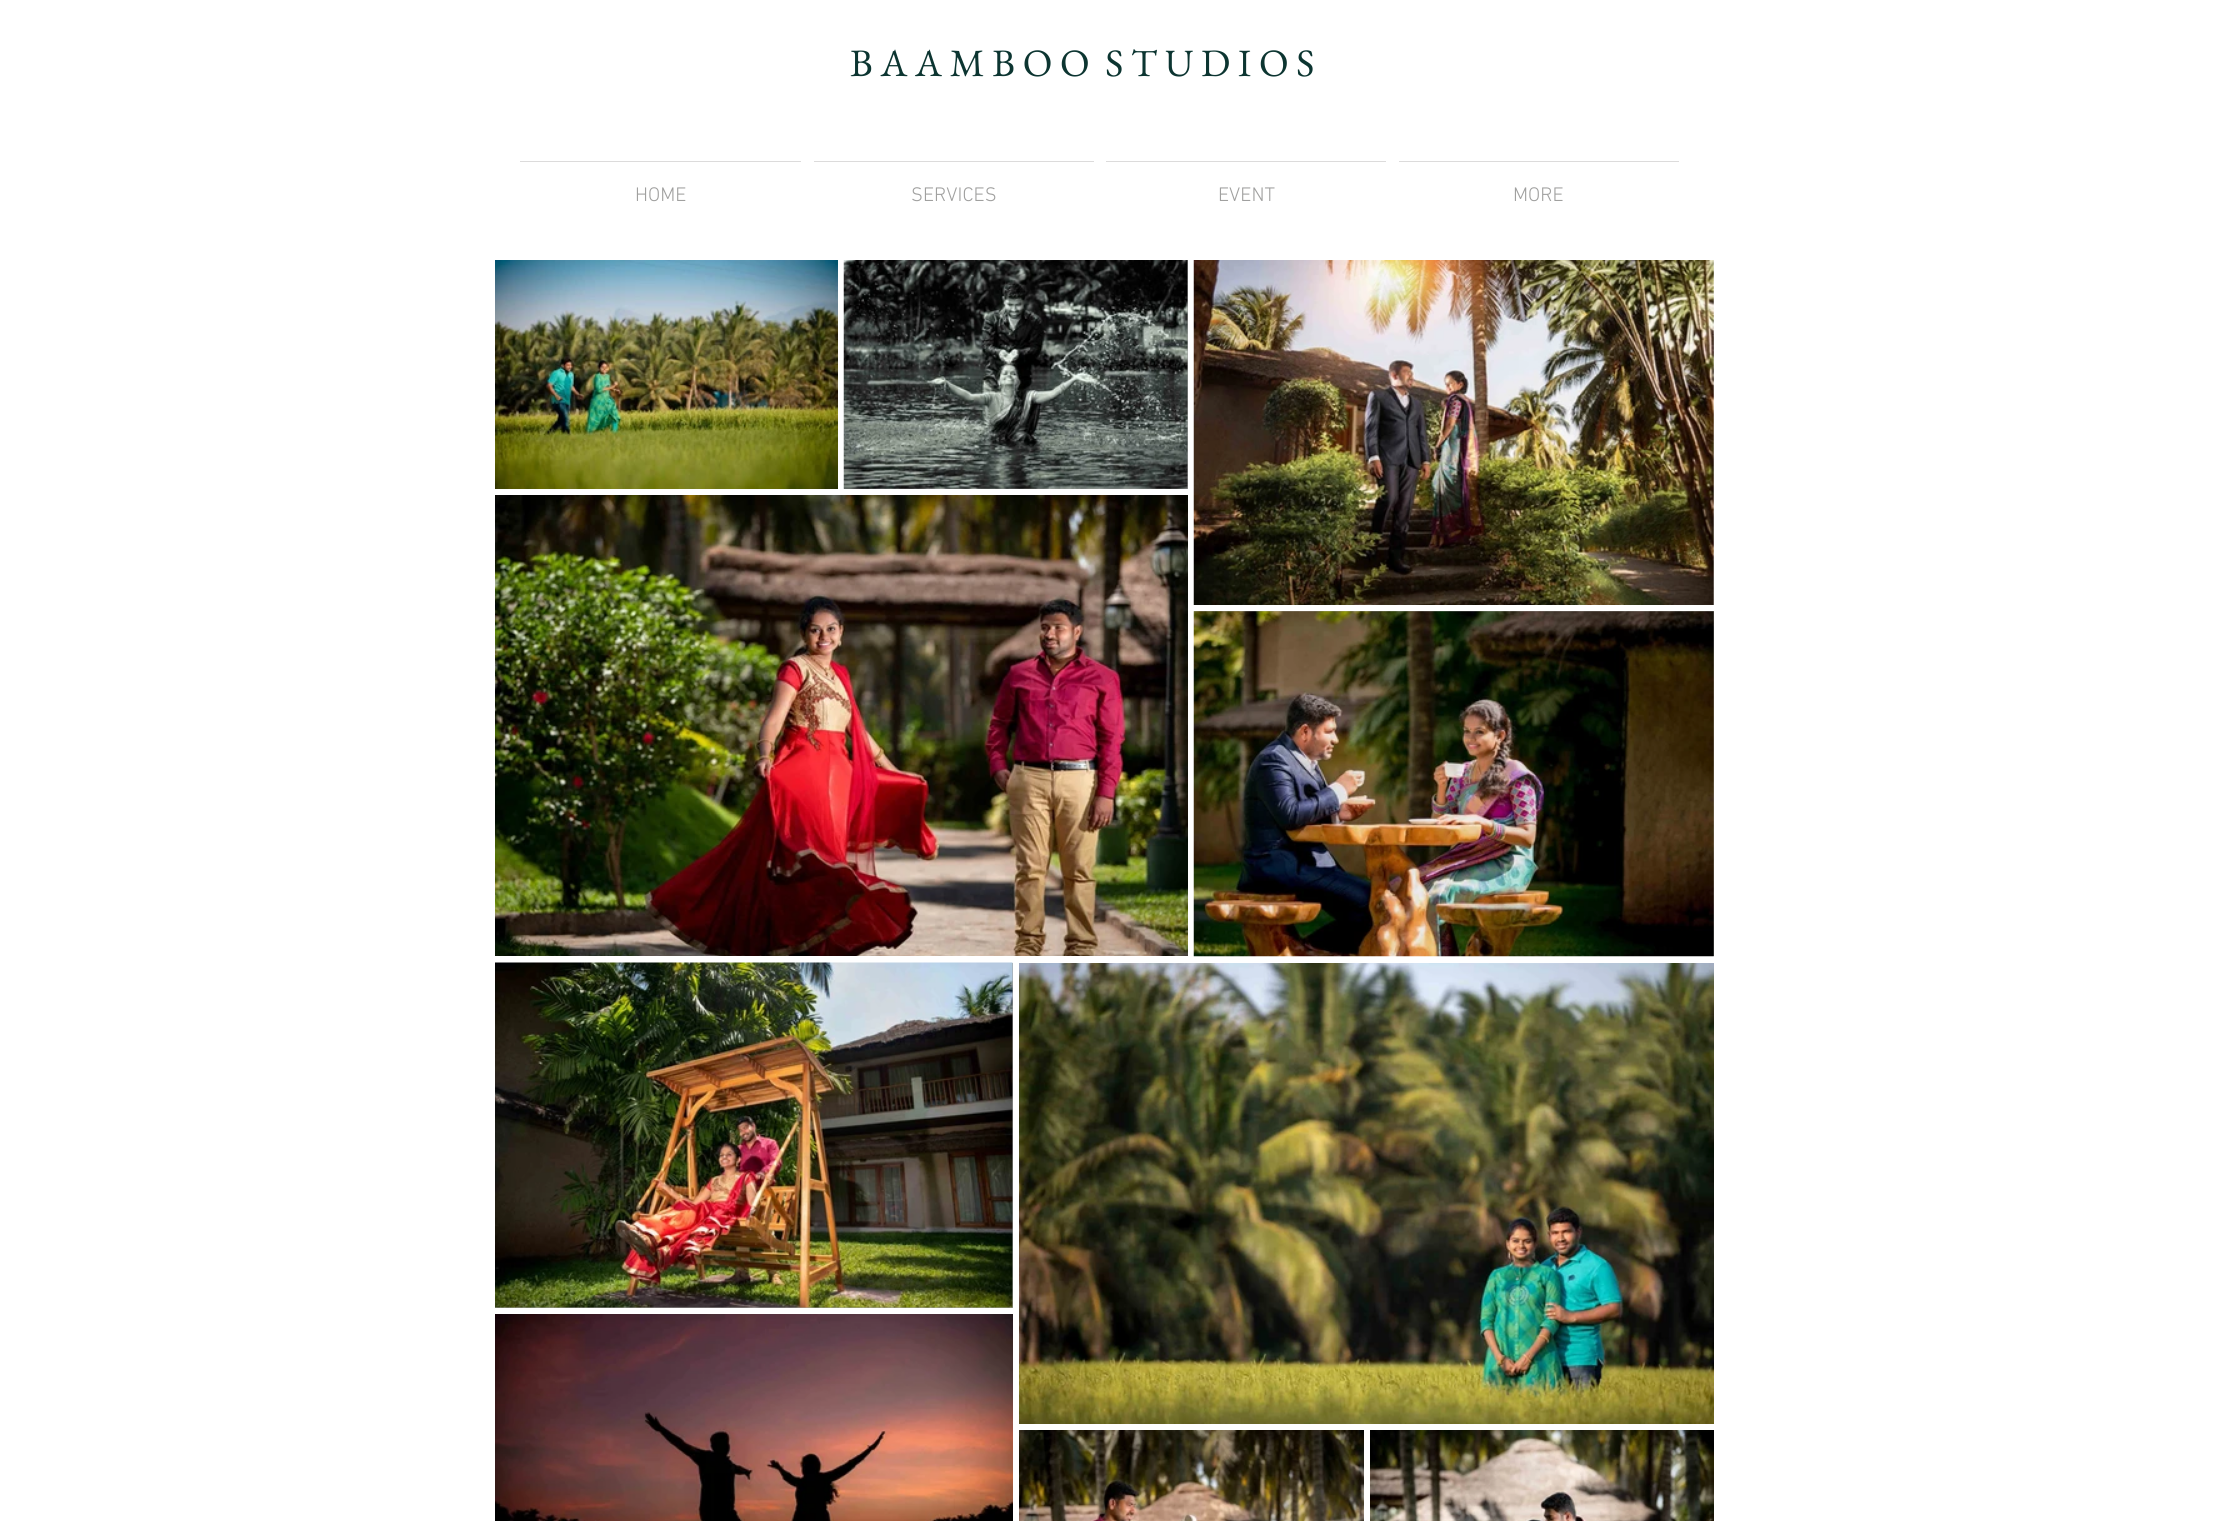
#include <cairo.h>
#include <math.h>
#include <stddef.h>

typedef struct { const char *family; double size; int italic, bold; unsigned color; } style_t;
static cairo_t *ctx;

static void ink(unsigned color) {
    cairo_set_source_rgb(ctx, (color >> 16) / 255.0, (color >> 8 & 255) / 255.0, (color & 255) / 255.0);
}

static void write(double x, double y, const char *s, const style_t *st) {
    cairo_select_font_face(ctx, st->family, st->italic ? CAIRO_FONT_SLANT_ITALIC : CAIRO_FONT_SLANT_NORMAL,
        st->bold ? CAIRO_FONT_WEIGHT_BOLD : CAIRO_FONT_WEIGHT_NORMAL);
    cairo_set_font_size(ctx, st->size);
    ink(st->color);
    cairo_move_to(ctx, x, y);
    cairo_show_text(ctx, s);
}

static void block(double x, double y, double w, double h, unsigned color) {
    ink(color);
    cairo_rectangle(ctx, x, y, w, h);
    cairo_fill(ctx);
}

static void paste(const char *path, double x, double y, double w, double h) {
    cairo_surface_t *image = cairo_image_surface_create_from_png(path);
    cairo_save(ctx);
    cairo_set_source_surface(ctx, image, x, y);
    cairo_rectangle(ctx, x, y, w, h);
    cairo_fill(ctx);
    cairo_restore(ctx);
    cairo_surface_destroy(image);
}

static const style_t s1 = {"EB Garamond", 38.75, 0, 0, 0x0c3531};
static const style_t s2 = {"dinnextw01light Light", 20, 0, 0, 0xa0a09f};

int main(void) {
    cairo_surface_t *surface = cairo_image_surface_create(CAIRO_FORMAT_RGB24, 2214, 1521);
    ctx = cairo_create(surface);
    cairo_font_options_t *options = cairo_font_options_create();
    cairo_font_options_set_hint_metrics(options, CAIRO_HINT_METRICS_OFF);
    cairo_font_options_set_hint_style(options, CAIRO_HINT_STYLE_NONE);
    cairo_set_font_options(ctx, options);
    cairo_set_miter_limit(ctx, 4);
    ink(0xffffff);
    cairo_paint(ctx);
    write(850, 76, "B A A M B O O  S T U D I O S", &s1);
    block(520, 161, 281, 1, 0xdcdbdb);
    write(635, 201, "HOME", &s2);
    block(814, 161, 280, 1, 0xdcdbdb);
    write(911, 201, "SERVICES", &s2);
    block(1106, 161, 280, 1, 0xdcdbdb);
    write(1218, 201, "EVENT", &s2);
    block(1399, 161, 280, 1, 0xdcdbdb);
    write(1513, 201, "MORE", &s2);
    paste("pic1.png", 495, 260, 343, 229);
    block(844, 260, 344, 229, 0xa0a09f);
    paste("pic2.png", 843, 260, 345, 229);
    paste("pic3.png", 1193, 260, 521, 345);
    paste("pic4.png", 495, 495, 693, 461);
    block(1194, 611, 520, 345, 0xa0a09f);
    paste("pic5.png", 1193, 611, 521, 346);
    block(495, 963, 518, 345, 0xa0a09f);
    paste("pic6.png", 495, 962, 518, 346);
    paste("pic7.png", 1019, 963, 695, 461);
    paste("pic8.png", 495, 1314, 518, 207);
    paste("pic9.png", 1019, 1430, 345, 91);
    paste("pic10.png", 1370, 1430, 344, 91);
    cairo_surface_write_to_png(surface, "screenshot.png");
    cairo_font_options_destroy(options);
    cairo_destroy(ctx);
    cairo_surface_destroy(surface);
    return 0;
}
